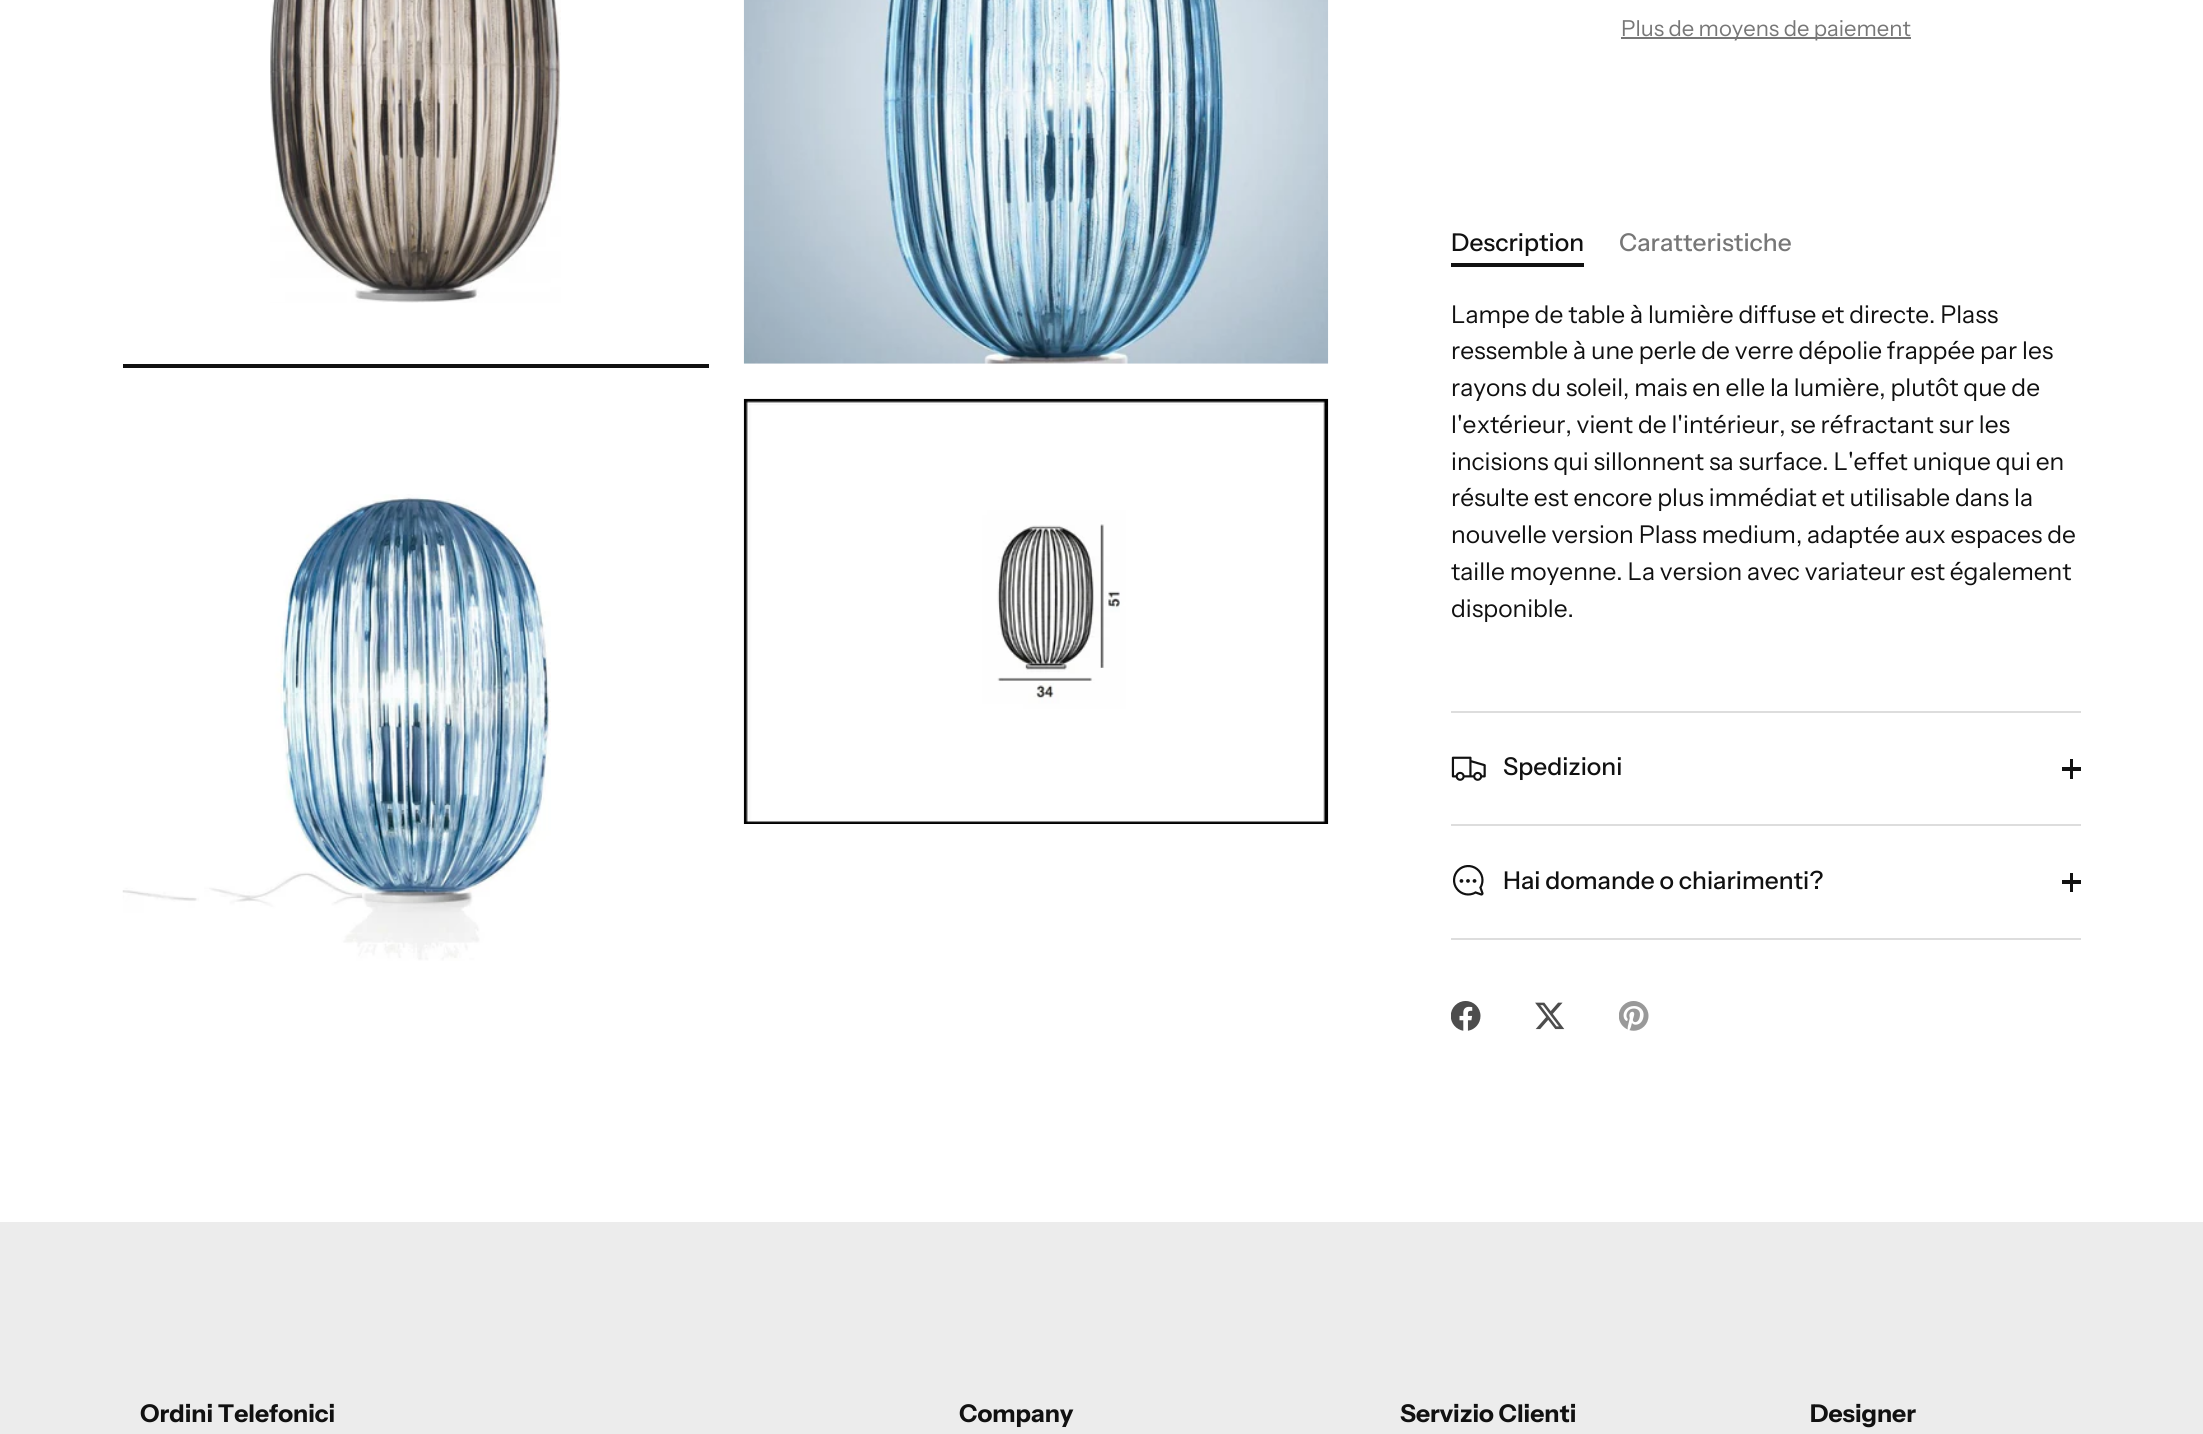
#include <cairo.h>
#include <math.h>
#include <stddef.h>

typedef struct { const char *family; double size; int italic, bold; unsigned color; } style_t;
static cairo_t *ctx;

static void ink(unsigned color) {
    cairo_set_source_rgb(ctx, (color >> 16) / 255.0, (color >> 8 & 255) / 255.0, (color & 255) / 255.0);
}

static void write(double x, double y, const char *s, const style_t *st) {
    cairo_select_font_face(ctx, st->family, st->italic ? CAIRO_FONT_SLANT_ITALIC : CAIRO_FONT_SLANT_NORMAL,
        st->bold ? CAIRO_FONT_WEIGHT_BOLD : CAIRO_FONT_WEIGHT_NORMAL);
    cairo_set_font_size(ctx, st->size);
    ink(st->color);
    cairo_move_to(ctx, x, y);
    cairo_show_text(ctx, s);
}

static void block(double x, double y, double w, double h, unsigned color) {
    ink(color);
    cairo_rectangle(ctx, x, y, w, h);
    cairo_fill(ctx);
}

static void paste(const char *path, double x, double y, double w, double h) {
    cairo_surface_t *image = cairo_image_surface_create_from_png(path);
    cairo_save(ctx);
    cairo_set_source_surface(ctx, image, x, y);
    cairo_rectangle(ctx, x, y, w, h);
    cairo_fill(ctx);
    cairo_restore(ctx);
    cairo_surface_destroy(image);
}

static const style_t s1 = {"Instrument Sans", 22, 0, 0, 0x777777};
static const style_t s2 = {"Instrument Sans Medium", 24.5, 0, 0, 0x111111};
static const style_t s3 = {"Instrument Sans Medium", 24.5, 0, 0, 0x777777};
static const style_t s4 = {"Instrument Sans", 24.5, 0, 0, 0x111111};
static const style_t s5 = {"Instrument Sans", 24.5, 0, 1, 0x111111};

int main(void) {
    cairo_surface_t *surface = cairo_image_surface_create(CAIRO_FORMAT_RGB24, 2203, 1434);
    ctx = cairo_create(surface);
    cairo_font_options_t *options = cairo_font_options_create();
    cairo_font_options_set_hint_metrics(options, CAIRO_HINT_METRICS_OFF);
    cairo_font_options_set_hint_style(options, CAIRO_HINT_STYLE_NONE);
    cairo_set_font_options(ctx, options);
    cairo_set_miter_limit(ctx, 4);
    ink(0xffffff);
    cairo_paint(ctx);
    paste("pic1.png", 270, 0, 291, 303);
    block(123, 364, 586, 4, 0x111111);
    paste("pic2.png", 122, 494, 429, 467);
    paste("pic3.png", 743, 0, 586, 364);
    paste("pic4.png", 743, 398, 586, 426);
    block(1621, 37, 290, 2, 0x777777);
    write(1621, 36, "Plus de moyens de paiement", &s1);
    write(1451, 251, "Description", &s2);
    write(1619, 251, "Caratteristiche", &s3);
    block(1451, 263, 133, 4, 0x111111);
    write(1451, 323, "Lampe de table à lumière diffuse et directe. Plass", &s4);
    write(1451, 359, "ressemble à une perle de verre dépolie frappée par les", &s4);
    write(1451, 396, "rayons du soleil, mais en elle la lumière, plutôt que de", &s4);
    write(1451, 433, "l'extérieur, vient de l'intérieur, se réfractant sur les", &s4);
    write(1451, 470, "incisions qui sillonnent sa surface. L'effet unique qui en", &s4);
    write(1451, 506, "résulte est encore plus immédiat et utilisable dans la", &s4);
    write(1451, 543, "nouvelle version Plass medium, adaptée aux espaces de", &s4);
    write(1451, 580, "taille moyenne. La version avec variateur est également", &s4);
    write(1451, 617, "disponible.", &s4);
    block(1451, 711, 630, 2, 0xdddddd);
    block(1451, 824, 630, 2, 0xdddddd);
    paste("pic5.png", 1451, 756, 35, 25);
    write(1503, 775, "Spedizioni", &s2);
    block(2070, 759, 3, 20, 0x111111);
    block(2062, 767, 19, 4, 0x111111);
    block(1451, 938, 630, 2, 0xdddddd);
    paste("pic6.png", 1453, 865, 31, 31);
    write(1503, 889, "Hai domande o chiarimenti?", &s2);
    block(2070, 873, 3, 19, 0x111111);
    block(2062, 880, 19, 4, 0x111111);
    paste("pic7.png", 1451, 1001, 30, 30);
    paste("pic8.png", 1535, 1002, 30, 28);
    paste("pic9.png", 1619, 1001, 30, 30);
    block(0, 1222, 2203, 212, 0xececec);
    write(140, 1422, "Ordini Telefonici", &s5);
    write(959, 1422, "Company", &s5);
    write(1400, 1422, "Servizio Clienti", &s5);
    write(1810, 1422, "Designer", &s5);
    cairo_surface_write_to_png(surface, "screenshot.png");
    cairo_font_options_destroy(options);
    cairo_destroy(ctx);
    cairo_surface_destroy(surface);
    return 0;
}
